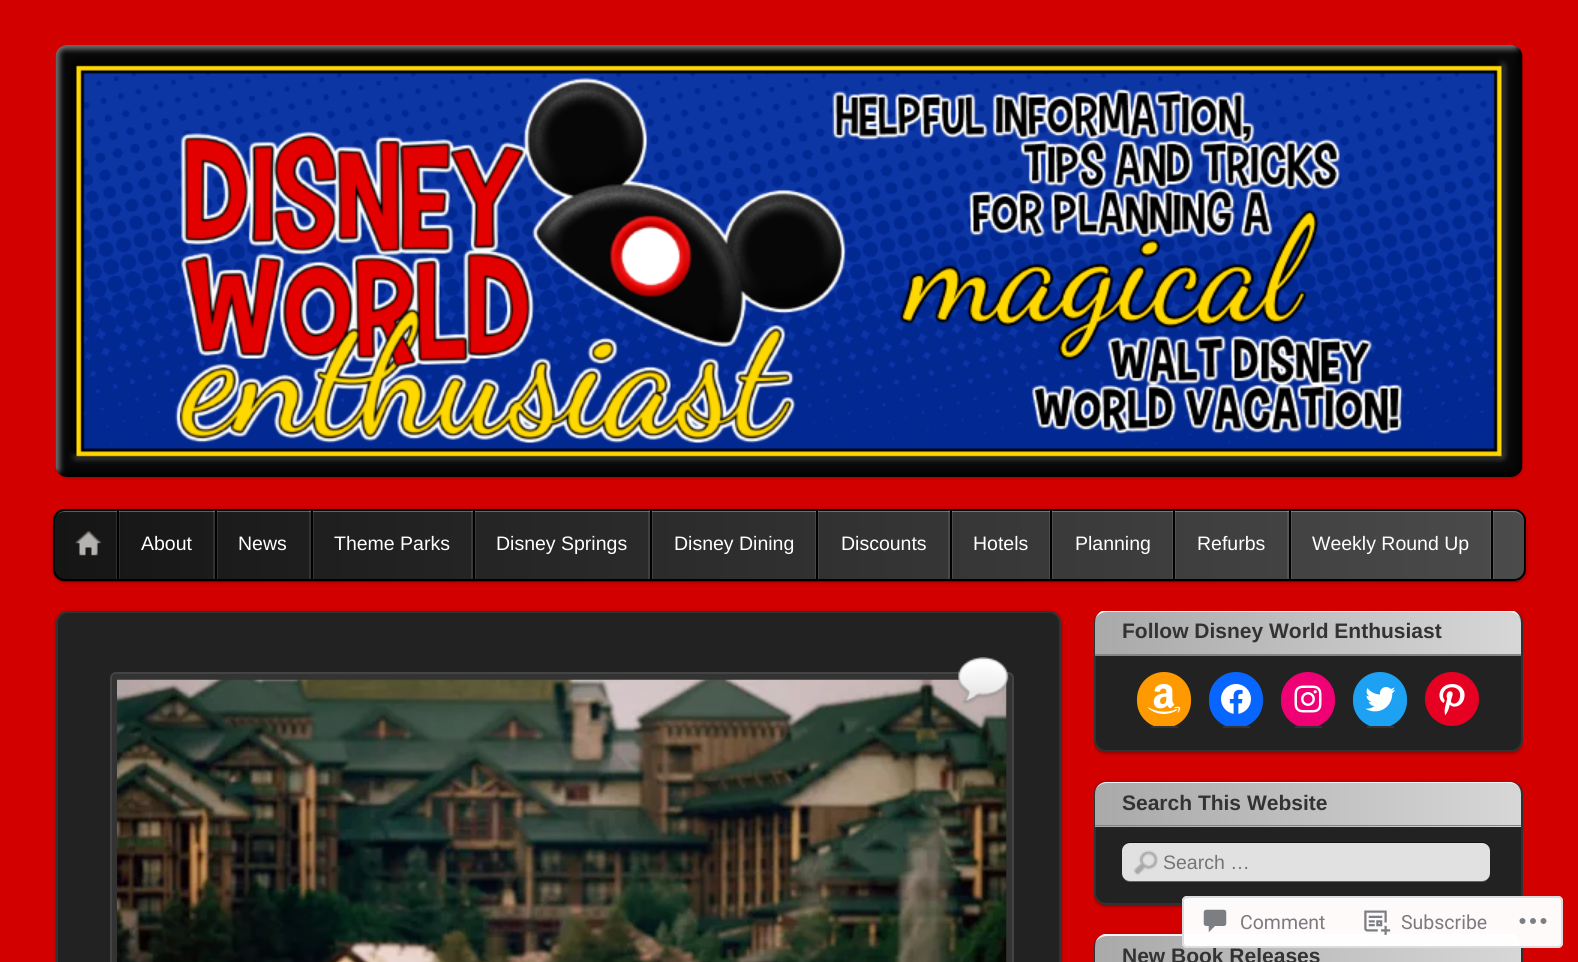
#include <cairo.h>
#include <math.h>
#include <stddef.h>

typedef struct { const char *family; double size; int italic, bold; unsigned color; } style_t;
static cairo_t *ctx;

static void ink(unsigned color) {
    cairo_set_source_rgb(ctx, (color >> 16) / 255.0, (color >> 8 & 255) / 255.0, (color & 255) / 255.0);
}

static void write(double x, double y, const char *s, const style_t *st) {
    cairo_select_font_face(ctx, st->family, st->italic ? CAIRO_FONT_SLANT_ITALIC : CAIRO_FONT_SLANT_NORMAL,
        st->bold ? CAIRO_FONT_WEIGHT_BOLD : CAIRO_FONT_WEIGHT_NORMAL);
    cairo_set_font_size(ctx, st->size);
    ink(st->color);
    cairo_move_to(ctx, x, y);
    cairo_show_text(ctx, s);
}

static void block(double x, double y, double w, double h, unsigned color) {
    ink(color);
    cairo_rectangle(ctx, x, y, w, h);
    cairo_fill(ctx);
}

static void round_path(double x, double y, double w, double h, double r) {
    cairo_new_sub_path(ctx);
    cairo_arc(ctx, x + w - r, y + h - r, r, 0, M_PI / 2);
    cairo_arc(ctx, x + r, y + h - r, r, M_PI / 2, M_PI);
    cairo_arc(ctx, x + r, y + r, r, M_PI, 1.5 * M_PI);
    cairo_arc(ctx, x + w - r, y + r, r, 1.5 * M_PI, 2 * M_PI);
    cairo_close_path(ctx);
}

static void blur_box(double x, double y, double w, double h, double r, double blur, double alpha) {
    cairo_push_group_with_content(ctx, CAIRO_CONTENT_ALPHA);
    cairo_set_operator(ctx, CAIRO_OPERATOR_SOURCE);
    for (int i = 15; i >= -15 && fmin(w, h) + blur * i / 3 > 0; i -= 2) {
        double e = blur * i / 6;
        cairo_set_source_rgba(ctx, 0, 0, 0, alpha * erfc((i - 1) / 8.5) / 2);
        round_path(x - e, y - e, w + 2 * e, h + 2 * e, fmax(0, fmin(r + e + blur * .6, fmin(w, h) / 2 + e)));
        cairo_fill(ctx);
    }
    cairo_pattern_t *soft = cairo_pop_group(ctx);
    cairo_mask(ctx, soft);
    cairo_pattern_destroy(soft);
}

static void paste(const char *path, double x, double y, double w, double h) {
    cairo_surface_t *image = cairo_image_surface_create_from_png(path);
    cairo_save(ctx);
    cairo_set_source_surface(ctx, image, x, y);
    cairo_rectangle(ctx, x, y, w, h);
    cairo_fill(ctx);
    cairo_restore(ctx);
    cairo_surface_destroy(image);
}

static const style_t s1 = {"Liberation Sans", 19.5, 0, 0, 0xffffff};
static const style_t s2 = {"Liberation Sans", 21, 0, 1, 0x333333};
static const style_t s3 = {"Liberation Sans", 19.5, 0, 0, 0x757575};
static const style_t s4 = {"Roboto", 19.5, 0, 0, 0x7a7a7f};

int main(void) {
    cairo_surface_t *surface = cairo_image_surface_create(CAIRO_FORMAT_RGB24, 1578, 962);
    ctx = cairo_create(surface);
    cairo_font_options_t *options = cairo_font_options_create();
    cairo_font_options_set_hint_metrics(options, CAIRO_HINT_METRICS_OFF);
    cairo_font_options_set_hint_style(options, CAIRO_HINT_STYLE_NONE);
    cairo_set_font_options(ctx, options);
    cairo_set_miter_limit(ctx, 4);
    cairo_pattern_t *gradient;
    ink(0xd30000);
    cairo_paint(ctx);
    ink(0x000000);
    blur_box(56, 47, 1467, 432, 12, 1, 0.15);
    paste("pic1.png", 55, 45, 1468, 432);
    blur_box(53, 510, 1473, 72, 12, 2, 0.3);
    cairo_set_source_rgba(ctx, 0, 0, 0, 0.3);
    cairo_new_path(ctx);
    cairo_move_to(ctx, 53, 573);
    cairo_curve_to(ctx, 55, 578, 59, 582, 65, 582);
    cairo_line_to(ctx, 1514, 582);
    cairo_curve_to(ctx, 1521, 582, 1526, 577, 1526, 570);
    cairo_line_to(ctx, 1526, 522);
    cairo_line_to(ctx, 1525, 517);
    cairo_line_to(ctx, 1526, 520);
    cairo_line_to(ctx, 1526, 568);
    cairo_curve_to(ctx, 1526, 575, 1520, 580, 1514, 580);
    cairo_line_to(ctx, 64, 580);
    cairo_curve_to(ctx, 59, 580, 55, 577, 53, 573);
    cairo_close_path(ctx);
    cairo_fill(ctx);
    cairo_save(ctx);
    round_path(53, 509, 1473, 72, 12);
    cairo_clip(ctx);
    gradient = cairo_pattern_create_linear(1524, 545, 54, 544);
    cairo_pattern_add_color_stop_rgba(gradient, 0, 0.294, 0.294, 0.294, 1);
    cairo_pattern_add_color_stop_rgba(gradient, 1, 0.082, 0.082, 0.082, 1);
    cairo_set_source(ctx, gradient);
    cairo_pattern_destroy(gradient);
    cairo_rectangle(ctx, 54, 509, 1470, 72);
    cairo_fill(ctx);
    cairo_restore(ctx);
    cairo_set_source_rgba(ctx, 1, 1, 1, 0.3);
    cairo_new_path(ctx);
    cairo_move_to(ctx, 64, 512);
    cairo_line_to(ctx, 1514, 512);
    cairo_curve_to(ctx, 1519, 512, 1524, 516, 1524, 522);
    cairo_line_to(ctx, 1524, 521);
    cairo_curve_to(ctx, 1524, 515, 1519, 510, 1513, 510);
    cairo_line_to(ctx, 65, 510);
    cairo_curve_to(ctx, 59, 510, 54, 515, 54, 521);
    cairo_line_to(ctx, 54, 522);
    cairo_curve_to(ctx, 54, 516, 59, 512, 64, 512);
    cairo_close_path(ctx);
    cairo_fill(ctx);
    round_path(54, 510, 1471, 70, 11);
    ink(0x000000);
    cairo_stroke(ctx);
    cairo_set_source_rgba(ctx, 1, 1, 1, 0.1);
    cairo_rectangle(ctx, 119, 510, 1, 69);
    cairo_fill(ctx);
    cairo_rectangle(ctx, 116, 510, 1, 69);
    cairo_fill(ctx);
    block(117, 510, 2, 69, 0x000000);
    paste("pic2.png", 75, 531, 27, 25);
    cairo_set_source_rgba(ctx, 1, 1, 1, 0.1);
    cairo_rectangle(ctx, 217, 510, 1, 69);
    cairo_fill(ctx);
    cairo_rectangle(ctx, 213, 510, 2, 69);
    cairo_fill(ctx);
    block(215, 510, 2, 69, 0x000000);
    write(141, 550, "About", &s1);
    cairo_set_source_rgba(ctx, 1, 1, 1, 0.1);
    cairo_rectangle(ctx, 313, 510, 1, 69);
    cairo_fill(ctx);
    cairo_rectangle(ctx, 309, 510, 2, 69);
    cairo_fill(ctx);
    block(311, 510, 2, 69, 0x000000);
    write(238, 550, "News", &s1);
    cairo_set_source_rgba(ctx, 1, 1, 1, 0.1);
    cairo_rectangle(ctx, 475, 510, 1, 69);
    cairo_fill(ctx);
    cairo_rectangle(ctx, 471, 510, 2, 69);
    cairo_fill(ctx);
    block(473, 510, 2, 69, 0x000000);
    write(334, 550, "Theme Parks", &s1);
    cairo_set_source_rgba(ctx, 1, 1, 1, 0.1);
    cairo_rectangle(ctx, 652, 510, 1, 69);
    cairo_fill(ctx);
    cairo_rectangle(ctx, 648, 510, 2, 69);
    cairo_fill(ctx);
    block(650, 510, 2, 69, 0x000000);
    write(496, 550, "Disney Springs", &s1);
    cairo_set_source_rgba(ctx, 1, 1, 1, 0.1);
    cairo_rectangle(ctx, 818, 510, 1, 69);
    cairo_fill(ctx);
    cairo_rectangle(ctx, 815, 510, 1, 69);
    cairo_fill(ctx);
    block(816, 510, 2, 69, 0x000000);
    write(674, 550, "Disney Dining", &s1);
    cairo_set_source_rgba(ctx, 1, 1, 1, 0.1);
    cairo_rectangle(ctx, 952, 510, 1, 69);
    cairo_fill(ctx);
    cairo_rectangle(ctx, 948, 510, 2, 69);
    cairo_fill(ctx);
    block(950, 510, 2, 69, 0x000000);
    write(841, 550, "Discounts", &s1);
    cairo_set_source_rgba(ctx, 1, 1, 1, 0.1);
    cairo_rectangle(ctx, 1052, 510, 1, 69);
    cairo_fill(ctx);
    cairo_rectangle(ctx, 1049, 510, 1, 69);
    cairo_fill(ctx);
    block(1050, 510, 2, 69, 0x000000);
    write(973, 550, "Hotels", &s1);
    cairo_set_source_rgba(ctx, 1, 1, 1, 0.1);
    cairo_rectangle(ctx, 1175, 510, 1, 69);
    cairo_fill(ctx);
    cairo_rectangle(ctx, 1172, 510, 1, 69);
    cairo_fill(ctx);
    block(1173, 510, 2, 69, 0x000000);
    write(1075, 550, "Planning", &s1);
    cairo_set_source_rgba(ctx, 1, 1, 1, 0.1);
    cairo_rectangle(ctx, 1291, 510, 1, 69);
    cairo_fill(ctx);
    cairo_rectangle(ctx, 1287, 510, 2, 69);
    cairo_fill(ctx);
    block(1289, 510, 2, 69, 0x000000);
    write(1197, 550, "Refurbs", &s1);
    cairo_set_source_rgba(ctx, 1, 1, 1, 0.1);
    cairo_rectangle(ctx, 1493, 510, 1, 69);
    cairo_fill(ctx);
    cairo_rectangle(ctx, 1490, 510, 1, 69);
    cairo_fill(ctx);
    block(1491, 510, 2, 69, 0x000000);
    write(1312, 550, "Weekly Round Up", &s1);
    ink(0x000000);
    blur_box(56, 612, 1005, 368, 12, 2, 0.4);
    ink(0x222222);
    round_path(57, 612, 1003, 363, 11);
    cairo_fill_preserve(ctx);
    ink(0x323232);
    cairo_stroke(ctx);
    ink(0x333333);
    round_path(111, 673, 902, 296, 5);
    cairo_fill_preserve(ctx);
    ink(0x444444);
    cairo_stroke(ctx);
    paste("pic4.png", 117, 679, 890, 283);
    paste("pic3.png", 957, 657, 52, 48);
    cairo_save(ctx);
    cairo_rectangle(ctx, 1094, 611, 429, 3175);
    cairo_clip(ctx);
    ink(0x000000);
    blur_box(1094, 612, 429, 141, 12, 2, 0.4);
    cairo_restore(ctx);
    ink(0x222222);
    round_path(1095, 612, 427, 139, 11);
    cairo_fill_preserve(ctx);
    ink(0x323232);
    cairo_stroke(ctx);
    gradient = cairo_pattern_create_linear(1521, 633, 1095, 633);
    cairo_pattern_add_color_stop_rgba(gradient, 0, 0.843, 0.843, 0.843, 1);
    cairo_pattern_add_color_stop_rgba(gradient, 1, 0.663, 0.663, 0.663, 1);
    cairo_set_source(ctx, gradient);
    cairo_pattern_destroy(gradient);
    cairo_new_path(ctx);
    cairo_move_to(ctx, 1107, 611);
    cairo_line_to(ctx, 1509, 611);
    cairo_curve_to(ctx, 1515.5, 611, 1521, 616.5, 1521, 623);
    cairo_line_to(ctx, 1521, 656);
    cairo_line_to(ctx, 1095, 656);
    cairo_line_to(ctx, 1095, 623);
    cairo_curve_to(ctx, 1095, 616.5, 1100.5, 611, 1107, 611);
    cairo_close_path(ctx);
    cairo_fill(ctx);
    cairo_save(ctx);
    cairo_rectangle(ctx, 1094, 611, 429, 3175);
    cairo_clip(ctx);
    ink(0xf5f5f5);
    cairo_new_path(ctx);
    cairo_move_to(ctx, 1107, 612);
    cairo_curve_to(ctx, 1100, 612, 1095, 617, 1095, 622);
    cairo_curve_to(ctx, 1095, 617, 1098, 612, 1104, 610);
    cairo_line_to(ctx, 1512, 610);
    cairo_curve_to(ctx, 1518, 612, 1521, 617, 1521, 622);
    cairo_curve_to(ctx, 1521, 617, 1516, 612, 1509, 612);
    cairo_close_path(ctx);
    cairo_fill(ctx);
    cairo_restore(ctx);
    block(1095, 654, 426, 2, 0x848484);
    write(1122, 638, "Follow Disney World Enthusiast", &s2);
    ink(0xff9900);
    round_path(1137, 672, 54, 56, 27);
    cairo_fill(ctx);
    block(1151, 726, 27, 2, 0x333333);
    paste("pic5.png", 1147, 684, 34, 30);
    ink(0x0866ff);
    round_path(1209, 672, 54, 56, 27);
    cairo_fill(ctx);
    block(1223, 726, 27, 2, 0x333333);
    paste("pic6.png", 1221, 684, 30, 30);
    ink(0xf00075);
    round_path(1281, 672, 54, 56, 27);
    cairo_fill(ctx);
    block(1295, 726, 27, 2, 0x333333);
    paste("pic7.png", 1294, 685, 28, 28);
    ink(0x1da1f2);
    round_path(1353, 672, 54, 56, 27);
    cairo_fill(ctx);
    block(1367, 726, 27, 2, 0x333333);
    paste("pic8.png", 1365, 687, 31, 25);
    ink(0xe60122);
    cairo_arc(ctx, 1452, 699, 27, 0, 2 * M_PI);
    cairo_fill(ctx);
    paste("pic9.png", 1439, 684, 26, 32);
    cairo_save(ctx);
    cairo_rectangle(ctx, 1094, 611, 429, 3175);
    cairo_clip(ctx);
    ink(0x000000);
    blur_box(1094, 783, 429, 123, 12, 2, 0.4);
    cairo_restore(ctx);
    ink(0x222222);
    round_path(1095, 783, 427, 121, 11);
    cairo_fill_preserve(ctx);
    ink(0x323232);
    cairo_stroke(ctx);
    gradient = cairo_pattern_create_linear(1521, 804, 1095, 804);
    cairo_pattern_add_color_stop_rgba(gradient, 0, 0.843, 0.843, 0.843, 1);
    cairo_pattern_add_color_stop_rgba(gradient, 1, 0.663, 0.663, 0.663, 1);
    cairo_set_source(ctx, gradient);
    cairo_pattern_destroy(gradient);
    cairo_new_path(ctx);
    cairo_move_to(ctx, 1107, 782);
    cairo_line_to(ctx, 1509, 782);
    cairo_curve_to(ctx, 1515.5, 782, 1521, 787.5, 1521, 794);
    cairo_line_to(ctx, 1521, 827);
    cairo_line_to(ctx, 1095, 827);
    cairo_line_to(ctx, 1095, 794);
    cairo_curve_to(ctx, 1095, 787.5, 1100.5, 782, 1107, 782);
    cairo_close_path(ctx);
    cairo_fill(ctx);
    ink(0xf5f5f5);
    cairo_new_path(ctx);
    cairo_move_to(ctx, 1107, 782);
    cairo_curve_to(ctx, 1100, 782, 1095, 787, 1095, 794);
    cairo_curve_to(ctx, 1095, 788, 1100, 783, 1107, 783);
    cairo_line_to(ctx, 1509, 783);
    cairo_curve_to(ctx, 1516, 783, 1521, 788, 1521, 794);
    cairo_curve_to(ctx, 1521, 787, 1516, 782, 1509, 782);
    cairo_close_path(ctx);
    cairo_fill(ctx);
    block(1095, 825, 426, 1, 0x848484);
    write(1122, 810, "Search This Website", &s2);
    ink(0x646464);
    cairo_new_path(ctx);
    cairo_move_to(ctx, 1122, 873);
    cairo_line_to(ctx, 1122, 874);
    cairo_curve_to(ctx, 1122, 878, 1126, 882, 1130, 882);
    cairo_line_to(ctx, 1482, 882);
    cairo_curve_to(ctx, 1486, 882, 1490, 878, 1490, 874);
    cairo_line_to(ctx, 1490, 853);
    cairo_line_to(ctx, 1489, 850);
    cairo_line_to(ctx, 1490, 873);
    cairo_curve_to(ctx, 1490, 877, 1486, 880, 1482, 880);
    cairo_line_to(ctx, 1130, 880);
    cairo_curve_to(ctx, 1125, 880, 1122, 877, 1122, 873);
    cairo_close_path(ctx);
    cairo_fill(ctx);
    cairo_set_source_rgba(ctx, 0, 0, 0, 0.4);
    cairo_new_path(ctx);
    cairo_move_to(ctx, 1130, 842);
    cairo_curve_to(ctx, 1125, 842, 1122, 846, 1122, 850);
    cairo_curve_to(ctx, 1122, 846, 1125, 843, 1130, 843);
    cairo_line_to(ctx, 1482, 843);
    cairo_curve_to(ctx, 1486, 843, 1490, 846, 1490, 850);
    cairo_line_to(ctx, 1489, 874);
    cairo_curve_to(ctx, 1491, 870, 1490, 865, 1490, 860);
    cairo_curve_to(ctx, 1490, 854, 1492, 842, 1482, 842);
    cairo_close_path(ctx);
    cairo_fill(ctx);
    ink(0xe1e1e1);
    round_path(1122, 843, 368, 38, 8);
    cairo_fill(ctx);
    paste("pic10.png", 1134, 850, 24, 25);
    write(1163, 869, "Search …", &s3);
    cairo_save(ctx);
    cairo_rectangle(ctx, 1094, 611, 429, 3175);
    cairo_clip(ctx);
    ink(0x000000);
    blur_box(1094, 936, 429, 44, 12, 2, 0.4);
    cairo_restore(ctx);
    round_path(1095, 936, 427, 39, 11);
    ink(0x323232);
    cairo_stroke(ctx);
    ink(0x000000);
    blur_box(1095, 936, 426, 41, 12, 1, 0.15);
    gradient = cairo_pattern_create_linear(1521, 958, 1095, 958);
    cairo_pattern_add_color_stop_rgba(gradient, 0, 0.843, 0.843, 0.843, 1);
    cairo_pattern_add_color_stop_rgba(gradient, 1, 0.663, 0.663, 0.663, 1);
    cairo_set_source(ctx, gradient);
    cairo_pattern_destroy(gradient);
    cairo_new_path(ctx);
    cairo_move_to(ctx, 1107, 935);
    cairo_line_to(ctx, 1509, 935);
    cairo_curve_to(ctx, 1515.5, 935, 1521, 940.5, 1521, 947);
    cairo_line_to(ctx, 1521, 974);
    cairo_line_to(ctx, 1095, 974);
    cairo_line_to(ctx, 1095, 947);
    cairo_curve_to(ctx, 1095, 940.5, 1100.5, 935, 1107, 935);
    cairo_close_path(ctx);
    cairo_fill(ctx);
    ink(0xf5f5f5);
    cairo_new_path(ctx);
    cairo_move_to(ctx, 1107, 936);
    cairo_curve_to(ctx, 1100, 936, 1095, 941, 1095, 946);
    cairo_curve_to(ctx, 1095, 941, 1098, 936, 1104, 934);
    cairo_line_to(ctx, 1512, 934);
    cairo_curve_to(ctx, 1518, 936, 1521, 941, 1521, 946);
    cairo_curve_to(ctx, 1521, 941, 1516, 936, 1509, 936);
    cairo_close_path(ctx);
    cairo_fill(ctx);
    write(1122, 963, "New Book Releases", &s2);
    cairo_set_source_rgba(ctx, 1, 1, 1, 0.98);
    round_path(1182, 896, 381, 52, 5);
    cairo_fill(ctx);
    round_path(1183, 897, 379, 50, 4);
    cairo_set_source_rgba(ctx, 0.863, 0.863, 0.871, 0.98);
    cairo_stroke(ctx);
    paste("pic11.png", 1203, 909, 24, 24);
    write(1240, 929, "Comment", &s4);
    paste("pic12.png", 1364, 910, 27, 25);
    write(1401, 929, "Subscribe", &s4);
    paste("pic13.png", 1519, 918, 28, 6);
    cairo_surface_write_to_png(surface, "screenshot.png");
    cairo_font_options_destroy(options);
    cairo_destroy(ctx);
    cairo_surface_destroy(surface);
    return 0;
}
